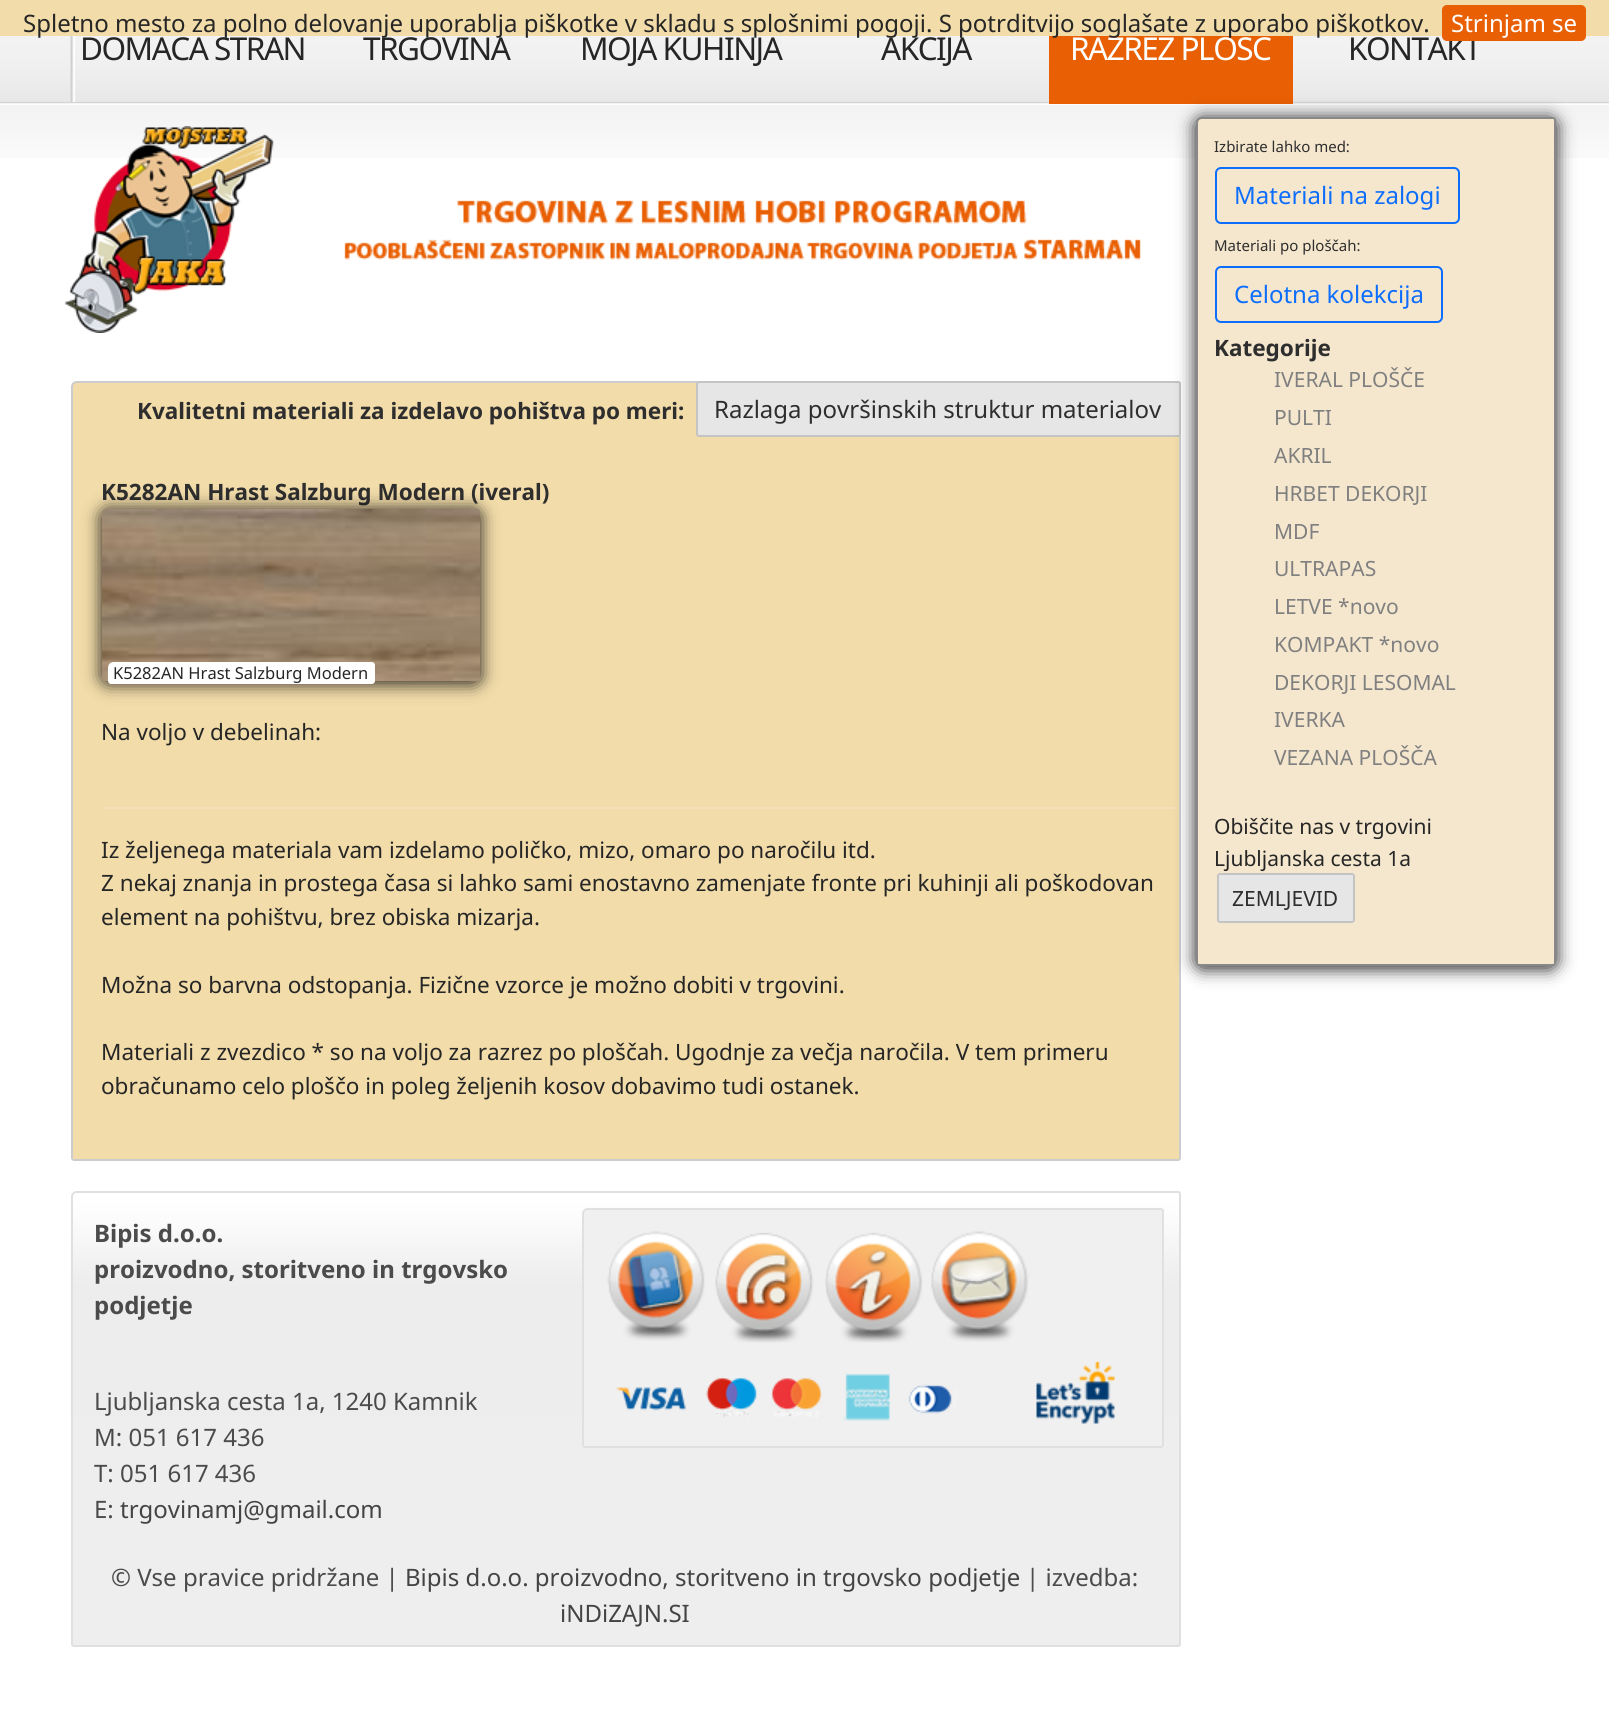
#include <cairo.h>
#include <math.h>
#include <stddef.h>

typedef struct { const char *family; double size; int italic, bold; unsigned color; } style_t;
static cairo_t *ctx;

static void ink(unsigned color) {
    cairo_set_source_rgb(ctx, (color >> 16) / 255.0, (color >> 8 & 255) / 255.0, (color & 255) / 255.0);
}

static void write(double x, double y, const char *s, const style_t *st) {
    cairo_select_font_face(ctx, st->family, st->italic ? CAIRO_FONT_SLANT_ITALIC : CAIRO_FONT_SLANT_NORMAL,
        st->bold ? CAIRO_FONT_WEIGHT_BOLD : CAIRO_FONT_WEIGHT_NORMAL);
    cairo_set_font_size(ctx, st->size);
    ink(st->color);
    cairo_move_to(ctx, x, y);
    cairo_show_text(ctx, s);
}

static void write_spaced(double x, double y, const char *s, double letter, double word) {
    cairo_move_to(ctx, x, y);
    while (*s) {
        char ch[5] = {0};
        int n = 0;
        do ch[n++] = *s++; while ((*s & 0xC0) == 0x80);
        cairo_show_text(ctx, ch);
        cairo_rel_move_to(ctx, letter + word * (*ch == ' '), 0);
    }
}

static void block(double x, double y, double w, double h, unsigned color) {
    ink(color);
    cairo_rectangle(ctx, x, y, w, h);
    cairo_fill(ctx);
}

static void round_path(double x, double y, double w, double h, double r) {
    cairo_new_sub_path(ctx);
    cairo_arc(ctx, x + w - r, y + h - r, r, 0, M_PI / 2);
    cairo_arc(ctx, x + r, y + h - r, r, M_PI / 2, M_PI);
    cairo_arc(ctx, x + r, y + r, r, M_PI, 1.5 * M_PI);
    cairo_arc(ctx, x + w - r, y + r, r, 1.5 * M_PI, 2 * M_PI);
    cairo_close_path(ctx);
}

static void blur_box(double x, double y, double w, double h, double r, double blur, double alpha) {
    cairo_push_group_with_content(ctx, CAIRO_CONTENT_ALPHA);
    cairo_set_operator(ctx, CAIRO_OPERATOR_SOURCE);
    for (int i = 15; i >= -15 && fmin(w, h) + blur * i / 3 > 0; i -= 2) {
        double e = blur * i / 6;
        cairo_set_source_rgba(ctx, 0, 0, 0, alpha * erfc((i - 1) / 8.5) / 2);
        round_path(x - e, y - e, w + 2 * e, h + 2 * e, fmax(0, fmin(r + e + blur * .6, fmin(w, h) / 2 + e)));
        cairo_fill(ctx);
    }
    cairo_pattern_t *soft = cairo_pop_group(ctx);
    cairo_mask(ctx, soft);
    cairo_pattern_destroy(soft);
}

static void paste(const char *path, double x, double y, double w, double h) {
    cairo_surface_t *image = cairo_image_surface_create_from_png(path);
    cairo_save(ctx);
    cairo_set_source_surface(ctx, image, x, y);
    cairo_rectangle(ctx, x, y, w, h);
    cairo_fill(ctx);
    cairo_restore(ctx);
    cairo_surface_destroy(image);
}

static const style_t s1 = {"Noto Sans", 24, 0, 0, 0x262626};
static const style_t s2 = {"Noto Sans", 24, 0, 0, 0xffffff};
static const style_t s3 = {"Noto Sans", 24, 0, 0, 0x2e2e2e};
static const style_t s4 = {"Noto Sans", 15, 0, 0, 0x2e2e2e};
static const style_t s5 = {"Noto Sans", 24, 0, 0, 0x0d6efd};
static const style_t s6 = {"Noto Sans", 22.5, 0, 1, 0x2e2e2e};
static const style_t s7 = {"Noto Sans", 21, 0, 0, 0x808080};
static const style_t s8 = {"Noto Sans", 21, 0, 0, 0x262626};
static const style_t s9 = {"Noto Sans", 21, 0, 0, 0x2e2e2e};
static const style_t s10 = {"Noto Sans", 16.5, 0, 0, 0x262626};
static const style_t s11 = {"Noto Sans", 22.5, 0, 0, 0x262626};
static const style_t s12 = {"Noto Sans", 24, 0, 1, 0x4b4b4b};
static const style_t s13 = {"Noto Sans", 24, 0, 0, 0x4b4b4b};
static const style_t s14 = {"Noto Sans", 24, 0, 0, 0x444444};

int main(void) {
    cairo_surface_t *surface = cairo_image_surface_create(CAIRO_FORMAT_RGB24, 1609, 1712);
    ctx = cairo_create(surface);
    cairo_font_options_t *options = cairo_font_options_create();
    cairo_font_options_set_hint_metrics(options, CAIRO_HINT_METRICS_OFF);
    cairo_font_options_set_hint_style(options, CAIRO_HINT_STYLE_NONE);
    cairo_set_font_options(ctx, options);
    cairo_set_miter_limit(ctx, 4);
    ink(0xffffff);
    cairo_paint(ctx);
    paste("pic1.png", 0, 36, 1609, 68);
    cairo_select_font_face(ctx, "Noto Sans", CAIRO_FONT_SLANT_NORMAL, CAIRO_FONT_WEIGHT_NORMAL);
    cairo_set_font_size(ctx, 31.5);
    ink(0x262626);
    write_spaced(80, 60, "DOMAČA STRAN", -1.5, 0);
    paste("pic3.png", 0, 103, 1609, 55);
    block(1049, 36, 244, 68, 0xe95f03);
    ink(0xffffff);
    write_spaced(1070, 60, "RAZREZ PLOŠČ", -1.5, 0);
    block(0, 0, 1609, 36, 0xf2dca9);
    paste("pic2.png", 70, 36, 5, 66);
    write(23, 32, "Spletno mesto za polno delovanje uporablja piškotke v skladu s splošnimi pogoji. S potrditvijo soglašate z uporabo piškotkov.", &s1);
    cairo_set_font_size(ctx, 31.5);
    write_spaced(1348, 60, "KONTAKT", -1.5, 0);
    ink(0xe95f03);
    round_path(1442, 5, 144, 36, 5);
    cairo_fill(ctx);
    write(1451, 32, "Strinjam se", &s2);
    cairo_set_font_size(ctx, 31.5);
    ink(0x262626);
    write_spaced(363, 60, "TRGOVINA", -1.5, 0);
    write_spaced(580, 60, "MOJA KUHINJA", -1.5, 0);
    write_spaced(881, 60, "AKCIJA", -1.5, 0);
    paste("pic4.png", 64, 126, 1077, 207);
    ink(0xf2dca9);
    cairo_new_path(ctx);
    cairo_move_to(ctx, 77, 382);
    cairo_line_to(ctx, 1178, 382);
    cairo_curve_to(ctx, 1179, 382, 1180, 383, 1180, 384);
    cairo_line_to(ctx, 1180, 1158);
    cairo_curve_to(ctx, 1180, 1159, 1179, 1160, 1178, 1160);
    cairo_line_to(ctx, 74, 1160);
    cairo_curve_to(ctx, 73, 1160, 72, 1159, 72, 1158);
    cairo_line_to(ctx, 72, 387);
    cairo_curve_to(ctx, 72, 384, 74, 382, 77, 382);
    cairo_close_path(ctx);
    cairo_fill_preserve(ctx);
    ink(0xcccccc);
    cairo_stroke(ctx);
    ink(0xe6e6e6);
    round_path(696, 381, 485, 56, 3);
    cairo_fill(ctx);
    round_path(697, 382, 483, 54, 2);
    cairo_set_source_rgba(ctx, 0, 0, 0, 0.15);
    cairo_stroke(ctx);
    write(714, 418, "Razlaga površinskih struktur materialov", &s3);
    block(102, 807, 1077, 2, 0xf4e0b7);
    ink(0x111111);
    blur_box(1196, 119, 360, 849, 6, 9, 1);
    ink(0xf5e7ce);
    cairo_new_path(ctx);
    cairo_move_to(ctx, 1202, 118);
    cairo_line_to(ctx, 1553, 118);
    cairo_curve_to(ctx, 1554, 118, 1555, 119, 1555, 120);
    cairo_line_to(ctx, 1555, 963);
    cairo_curve_to(ctx, 1555, 964, 1554, 965, 1553, 965);
    cairo_line_to(ctx, 1199, 965);
    cairo_curve_to(ctx, 1198, 965, 1197, 964, 1197, 963);
    cairo_line_to(ctx, 1197, 123);
    cairo_curve_to(ctx, 1197, 120, 1199, 118, 1202, 118);
    cairo_close_path(ctx);
    cairo_fill_preserve(ctx);
    ink(0x888888);
    cairo_stroke(ctx);
    write(1214, 152, "Izbirate lahko med:", &s4);
    round_path(1216, 168, 243, 55, 5);
    ink(0x0d6efd);
    cairo_stroke(ctx);
    write(1234, 204, "Materiali na zalogi", &s5);
    write(1214, 251, "Materiali po ploščah:", &s4);
    round_path(1216, 267, 226, 55, 5);
    ink(0x0d6efd);
    cairo_stroke(ctx);
    write(1234, 303, "Celotna kolekcija", &s5);
    write(1214, 356, "Kategorije", &s6);
    write(1274, 387, "IVERAL PLOŠČE", &s7);
    write(1274, 425, "PULTI", &s7);
    write(1274, 463, "AKRIL", &s7);
    write(1274, 501, "HRBET DEKORJI", &s7);
    write(1274, 539, "MDF", &s7);
    write(1274, 576, "ULTRAPAS", &s7);
    write(1274, 614, "LETVE *novo", &s7);
    write(1274, 652, "KOMPAKT *novo", &s7);
    write(1274, 690, "DEKORJI LESOMAL", &s7);
    write(1274, 727, "IVERKA", &s7);
    write(1274, 765, "VEZANA PLOŠČA", &s7);
    write(1214, 834, "Obiščite nas v trgovini", &s8);
    write(1214, 866, "Ljubljanska cesta 1a", &s8);
    ink(0xe6e6e6);
    round_path(1217, 873, 138, 50, 3);
    cairo_fill(ctx);
    round_path(1218, 874, 136, 48, 2);
    cairo_set_source_rgba(ctx, 0, 0, 0, 0.15);
    cairo_stroke(ctx);
    write(1232, 906, "ZEMLJEVID", &s9);
    write(137, 419, "Kvalitetni materiali za izdelavo pohištva po meri:", &s6);
    write(101, 500, "K5282AN Hrast Salzburg Modern (iveral)", &s6);
    ink(0x111111);
    blur_box(102, 510, 378, 173, 6, 9, 1);
    paste("pic5.png", 102, 508, 378, 173);
    ink(0xffffff);
    cairo_new_path(ctx);
    cairo_move_to(ctx, 114, 662);
    cairo_line_to(ctx, 372, 662);
    cairo_curve_to(ctx, 373.5, 662, 375, 663.5, 375, 665);
    cairo_line_to(ctx, 375, 681);
    cairo_curve_to(ctx, 375, 682.5, 373.5, 684, 372, 684);
    cairo_line_to(ctx, 111, 684);
    cairo_curve_to(ctx, 109.5, 684, 108, 682.5, 108, 681);
    cairo_line_to(ctx, 108, 668);
    cairo_curve_to(ctx, 108, 664.5, 110.5, 662, 114, 662);
    cairo_close_path(ctx);
    cairo_fill(ctx);
    write(113, 679, "K5282AN Hrast Salzburg Modern", &s10);
    write(101, 740, "Na voljo v debelinah:", &s11);
    write(101, 858, "Iz željenega materiala vam izdelamo poličko, mizo, omaro po naročilu itd.", &s11);
    write(101, 891, "Z nekaj znanja in prostega časa si lahko sami enostavno zamenjate fronte pri kuhinji ali poškodovan", &s11);
    write(101, 925, "element na pohištvu, brez obiska mizarja.", &s11);
    write(101, 993, "Možna so barvna odstopanja. Fizične vzorce je možno dobiti v trgovini.", &s11);
    write(101, 1060, "Materiali z zvezdico * so na voljo za razrez po ploščah. Ugodnje za večja naročila. V tem primeru", &s11);
    write(101, 1094, "obračunamo celo ploščo in poleg željenih kosov dobavimo tudi ostanek.", &s11);
    ink(0xeeeeee);
    cairo_new_path(ctx);
    cairo_move_to(ctx, 77, 1191);
    cairo_line_to(ctx, 1178, 1191);
    cairo_curve_to(ctx, 1179.5, 1191, 1181, 1192.5, 1181, 1194);
    cairo_line_to(ctx, 1181, 1644);
    cairo_curve_to(ctx, 1181, 1645.5, 1179.5, 1647, 1178, 1647);
    cairo_line_to(ctx, 74, 1647);
    cairo_curve_to(ctx, 72.5, 1647, 71, 1645.5, 71, 1644);
    cairo_line_to(ctx, 71, 1197);
    cairo_curve_to(ctx, 71, 1193.5, 73.5, 1191, 77, 1191);
    cairo_close_path(ctx);
    cairo_fill(ctx);
    paste("pic6.png", 70, 1192, 1111, 225);
    cairo_new_path(ctx);
    cairo_move_to(ctx, 77, 1192);
    cairo_line_to(ctx, 1178, 1192);
    cairo_curve_to(ctx, 1179, 1192, 1180, 1193, 1180, 1194);
    cairo_line_to(ctx, 1180, 1644);
    cairo_curve_to(ctx, 1180, 1645, 1179, 1646, 1178, 1646);
    cairo_line_to(ctx, 74, 1646);
    cairo_curve_to(ctx, 73, 1646, 72, 1645, 72, 1644);
    cairo_line_to(ctx, 72, 1197);
    cairo_curve_to(ctx, 72, 1194, 74, 1192, 77, 1192);
    cairo_close_path(ctx);
    ink(0xe0e0e0);
    cairo_stroke(ctx);
    write(94, 1242, "Bipis d.o.o.", &s12);
    write(94, 1278, "proizvodno, storitveno in trgovsko", &s12);
    write(94, 1314, "podjetje", &s12);
    write(94, 1410, "Ljubljanska cesta 1a, 1240 Kamnik", &s13);
    write(94, 1446, "M: 051 617 436", &s13);
    write(94, 1482, "T: 051 617 436", &s13);
    write(94, 1518, "E:", &s13);
    write(120, 1518, "trgovinamj@gmail.com", &s14);
    ink(0xf0f0f0);
    cairo_new_path(ctx);
    cairo_move_to(ctx, 588, 1209);
    cairo_line_to(ctx, 1161, 1209);
    cairo_curve_to(ctx, 1162, 1209, 1163, 1210, 1163, 1211);
    cairo_line_to(ctx, 1163, 1445);
    cairo_curve_to(ctx, 1163, 1446, 1162, 1447, 1161, 1447);
    cairo_line_to(ctx, 585, 1447);
    cairo_curve_to(ctx, 584, 1447, 583, 1446, 583, 1445);
    cairo_line_to(ctx, 583, 1214);
    cairo_curve_to(ctx, 583, 1211, 585, 1209, 588, 1209);
    cairo_close_path(ctx);
    cairo_fill_preserve(ctx);
    ink(0xe0e0e0);
    cairo_stroke(ctx);
    paste("pic7.png", 607, 1231, 98, 110);
    paste("pic8.png", 715, 1232, 99, 111);
    paste("pic9.png", 825, 1232, 98, 111);
    paste("pic10.png", 931, 1231, 98, 111);
    paste("pic11.png", 616, 1361, 499, 63);
    write(111, 1586, "© Vse pravice pridržane |", &s13);
    write(405, 1586, "Bipis d.o.o. proizvodno, storitveno in trgovsko podjetje", &s14);
    write(1026, 1586, "| izvedba:", &s13);
    write(560, 1622, "iNDiZAJN.SI", &s14);
    cairo_surface_write_to_png(surface, "screenshot.png");
    cairo_font_options_destroy(options);
    cairo_destroy(ctx);
    cairo_surface_destroy(surface);
    return 0;
}
